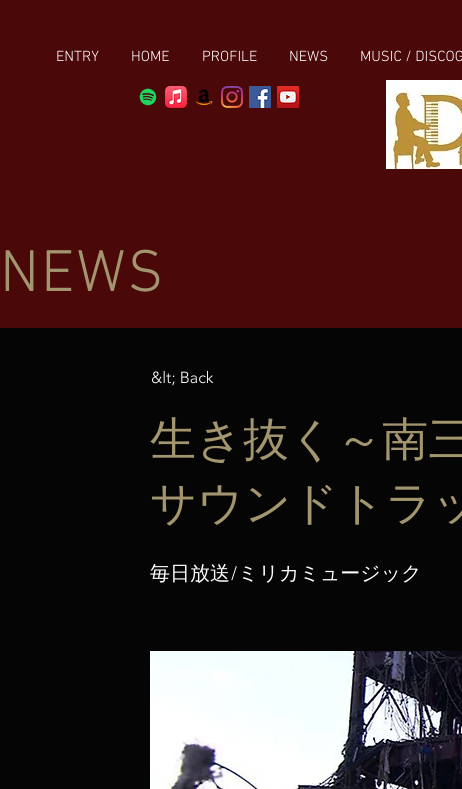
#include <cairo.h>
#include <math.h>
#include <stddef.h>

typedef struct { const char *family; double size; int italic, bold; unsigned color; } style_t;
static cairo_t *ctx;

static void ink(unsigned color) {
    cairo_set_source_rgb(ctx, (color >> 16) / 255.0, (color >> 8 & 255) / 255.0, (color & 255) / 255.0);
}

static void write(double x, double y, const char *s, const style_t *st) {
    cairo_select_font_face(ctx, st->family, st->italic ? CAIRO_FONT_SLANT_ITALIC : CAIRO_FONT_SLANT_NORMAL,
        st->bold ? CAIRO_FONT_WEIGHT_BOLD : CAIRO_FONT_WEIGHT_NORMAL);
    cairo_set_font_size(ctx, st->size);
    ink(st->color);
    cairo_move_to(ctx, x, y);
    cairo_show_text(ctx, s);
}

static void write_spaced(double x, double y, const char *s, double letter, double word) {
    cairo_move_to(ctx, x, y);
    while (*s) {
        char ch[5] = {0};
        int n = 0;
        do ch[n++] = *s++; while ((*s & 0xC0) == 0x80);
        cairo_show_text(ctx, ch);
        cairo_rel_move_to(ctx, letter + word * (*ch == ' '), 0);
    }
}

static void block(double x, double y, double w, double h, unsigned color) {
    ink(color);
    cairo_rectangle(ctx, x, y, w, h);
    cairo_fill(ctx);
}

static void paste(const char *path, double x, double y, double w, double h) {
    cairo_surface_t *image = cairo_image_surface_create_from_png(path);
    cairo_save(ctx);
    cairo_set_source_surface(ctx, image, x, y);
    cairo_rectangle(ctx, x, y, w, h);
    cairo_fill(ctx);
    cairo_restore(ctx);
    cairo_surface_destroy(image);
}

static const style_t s1 = {"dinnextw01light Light", 15, 0, 0, 0xffffff};
static const style_t s2 = {"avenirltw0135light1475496 Light", 16, 0, 0, 0xffffff};
static const style_t s3 = {"WenQuanYi Zen Hei Medium", 46, 0, 0, 0xa3956d};
static const style_t s4 = {"WenQuanYi Zen Hei Medium", 20, 0, 0, 0xffffff};
static const style_t s5 = {"dinnextw01light Light", 20, 0, 0, 0xffffff};

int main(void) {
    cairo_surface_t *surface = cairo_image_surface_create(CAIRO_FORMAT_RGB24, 462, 789);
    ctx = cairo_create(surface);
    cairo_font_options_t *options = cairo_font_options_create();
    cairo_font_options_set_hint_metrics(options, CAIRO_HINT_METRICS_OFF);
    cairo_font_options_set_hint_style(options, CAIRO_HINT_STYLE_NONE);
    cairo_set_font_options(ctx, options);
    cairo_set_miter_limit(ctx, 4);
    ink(0x050505);
    cairo_paint(ctx);
    block(0, 0, 462, 328, 0x4a0809);
    write(56, 61, "ENTRY", &s1);
    write(131, 61, "HOME", &s1);
    write(202, 61, "PROFILE", &s1);
    write(289, 61, "NEWS", &s1);
    write(360, 61, "MUSIC / DISCOG", &s1);
    paste("pic1.png", 139, 88, 18, 18);
    paste("pic2.png", 165, 86, 22, 22);
    paste("pic3.png", 195, 89, 18, 17);
    paste("pic4.png", 221, 86, 22, 22);
    paste("pic5.png", 249, 86, 22, 22);
    paste("pic6.png", 277, 86, 22, 22);
    paste("pic7.png", 386, 80, 76, 89);
    cairo_set_font_size(ctx, 60);
    ink(0xa3956d);
    write_spaced(0, 291, "NEWS", 2, 0);
    write(151, 383, "&lt; Back", &s2);
    write(150, 455, "生き抜く～南三", &s3);
    write(150, 519, "サウンドトラッ", &s3);
    write(150, 580, "毎日放送", &s4);
    write(230, 580, "/", &s5);
    write(238, 580, "ミリカミュージック", &s4);
    paste("pic8.png", 150, 651, 312, 138);
    cairo_surface_write_to_png(surface, "screenshot.png");
    cairo_font_options_destroy(options);
    cairo_destroy(ctx);
    cairo_surface_destroy(surface);
    return 0;
}
